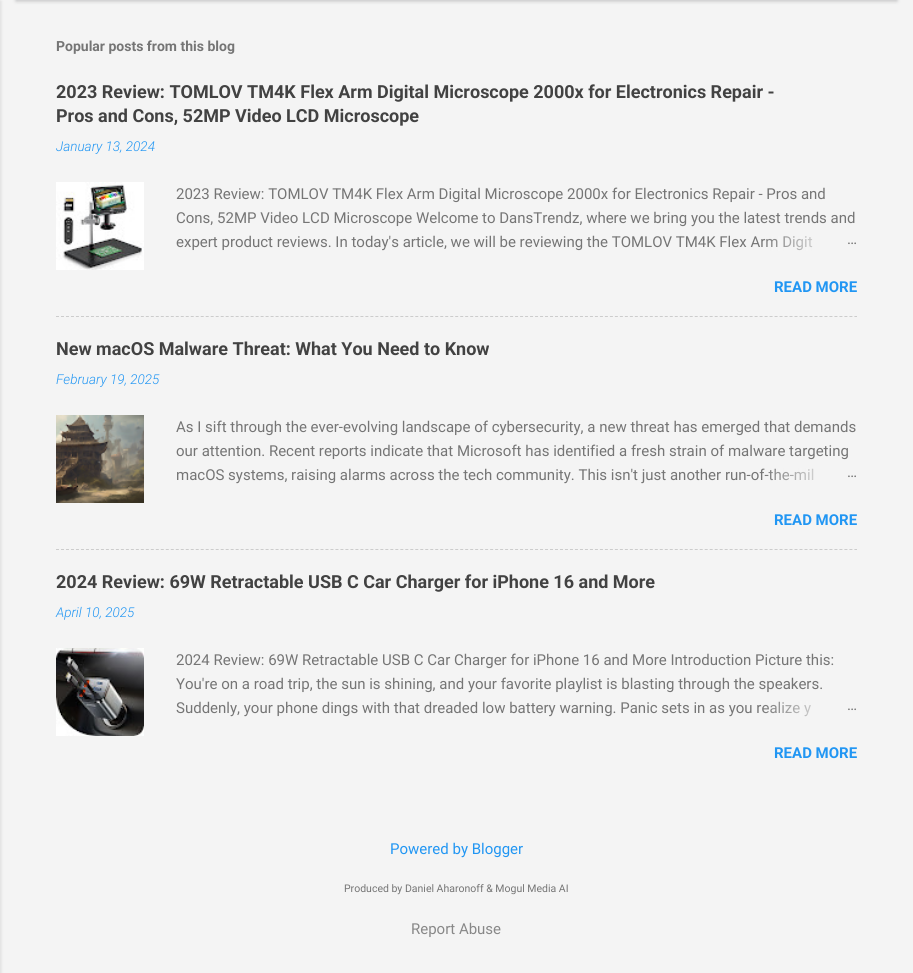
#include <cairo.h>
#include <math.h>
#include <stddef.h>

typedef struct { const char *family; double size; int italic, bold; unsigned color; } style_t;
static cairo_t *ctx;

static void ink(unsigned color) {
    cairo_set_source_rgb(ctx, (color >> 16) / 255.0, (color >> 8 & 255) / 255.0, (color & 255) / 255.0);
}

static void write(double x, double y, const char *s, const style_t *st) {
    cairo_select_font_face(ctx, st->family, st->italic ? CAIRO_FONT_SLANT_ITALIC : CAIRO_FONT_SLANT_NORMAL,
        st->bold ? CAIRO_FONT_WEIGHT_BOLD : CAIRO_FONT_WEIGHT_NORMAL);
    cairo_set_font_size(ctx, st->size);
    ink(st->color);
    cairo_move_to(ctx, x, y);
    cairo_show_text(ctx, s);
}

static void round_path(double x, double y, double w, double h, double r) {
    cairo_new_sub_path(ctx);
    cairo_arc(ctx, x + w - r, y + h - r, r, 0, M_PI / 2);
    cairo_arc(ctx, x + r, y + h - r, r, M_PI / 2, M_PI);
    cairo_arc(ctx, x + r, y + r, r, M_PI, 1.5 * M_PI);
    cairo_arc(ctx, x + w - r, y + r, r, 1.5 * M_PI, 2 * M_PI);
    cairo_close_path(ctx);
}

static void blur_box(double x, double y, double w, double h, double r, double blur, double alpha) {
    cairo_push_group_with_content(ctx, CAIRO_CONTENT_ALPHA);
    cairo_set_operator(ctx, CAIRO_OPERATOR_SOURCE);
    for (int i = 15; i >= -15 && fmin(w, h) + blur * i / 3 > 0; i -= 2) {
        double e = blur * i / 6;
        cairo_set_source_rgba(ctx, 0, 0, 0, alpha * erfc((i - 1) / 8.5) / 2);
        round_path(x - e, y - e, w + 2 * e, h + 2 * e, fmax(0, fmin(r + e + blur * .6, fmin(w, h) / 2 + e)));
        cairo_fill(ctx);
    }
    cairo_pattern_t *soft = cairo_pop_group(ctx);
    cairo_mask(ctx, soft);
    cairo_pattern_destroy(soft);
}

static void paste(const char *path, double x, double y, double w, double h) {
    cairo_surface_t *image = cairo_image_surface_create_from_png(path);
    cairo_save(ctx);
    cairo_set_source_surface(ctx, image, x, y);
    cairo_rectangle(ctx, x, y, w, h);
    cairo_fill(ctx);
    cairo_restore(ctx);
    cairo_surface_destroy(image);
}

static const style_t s1 = {"Roboto", 14, 0, 1, 0x757575};
static const style_t s2 = {"Roboto", 18, 0, 1, 0x424242};
static const style_t s3 = {"Roboto Light", 13.5, 1, 0, 0x2196f3};
static const style_t s4 = {"Roboto", 15, 0, 0, 0x757575};
static const style_t s5 = {"Roboto", 15, 0, 1, 0x2196f3};
static const style_t s6 = {"Roboto", 15, 0, 0, 0x2196f3};
static const style_t s7 = {"Roboto", 10.5, 0, 0, 0x757575};
static const style_t s8 = {"Roboto", 15, 0, 0, 0x888888};

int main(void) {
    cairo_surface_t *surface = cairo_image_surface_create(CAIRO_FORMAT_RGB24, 913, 973);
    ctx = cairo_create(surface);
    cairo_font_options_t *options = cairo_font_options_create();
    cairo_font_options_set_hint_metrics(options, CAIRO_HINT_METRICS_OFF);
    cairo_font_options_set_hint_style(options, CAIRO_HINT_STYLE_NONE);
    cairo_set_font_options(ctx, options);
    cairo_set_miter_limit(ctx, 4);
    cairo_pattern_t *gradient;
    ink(0xf4f4f4);
    cairo_paint(ctx);
    ink(0x000000);
    blur_box(-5, 1, 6, 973, 0, 1.5, 0.1);
    ink(0x3c4043);
    blur_box(16, -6, 881, 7, 0, 2, 0.3);
    write(56, 51, "Popular posts from this blog", &s1);
    write(56, 98, "2023 Review: TOMLOV TM4K Flex Arm Digital Microscope 2000x for Electronics Repair -", &s2);
    write(56, 122, "Pros and Cons, 52MP Video LCD Microscope", &s2);
    write(56, 151, "January 13, 2024", &s3);
    paste("pic1.png", 56, 182, 88, 88);
    write(176, 199, "2023 Review: TOMLOV TM4K Flex Arm Digital Microscope 2000x for Electronics Repair - Pros and", &s4);
    write(176, 223, "Cons, 52MP Video LCD Microscope Welcome to DansTrendz, where we bring you the latest trends and", &s4);
    write(176, 247, "expert product reviews. In today's article, we will be reviewing the TOMLOV TM4K Flex Arm Digit", &s4);
    gradient = cairo_pattern_create_linear(857, 242, 761, 242);
    cairo_pattern_add_color_stop_rgba(gradient, 0, 0.957, 0.957, 0.957, 1);
    cairo_pattern_add_color_stop_rgba(gradient, 0.2, 0.957, 0.957, 0.957, 1);
    cairo_pattern_add_color_stop_rgba(gradient, 1, 0.957, 0.957, 0.957, 0);
    cairo_set_source(ctx, gradient);
    cairo_pattern_destroy(gradient);
    cairo_rectangle(ctx, 763, 236, 50, 15);
    cairo_fill(ctx);
    write(847, 244, "…", &s4);
    write(774, 292, "READ MORE", &s5);
    cairo_new_path(ctx);
    cairo_move_to(ctx, 56, 316.5);
    cairo_line_to(ctx, 857, 316.5);
    ink(0xcccccc);
    cairo_set_line_width(ctx, 1);
    cairo_set_dash(ctx, (double[]){3, 1.99}, 2, 0);
    cairo_stroke(ctx);
    write(56, 355, "New macOS Malware Threat: What You Need to Know", &s2);
    write(56, 384, "February 19, 2025", &s3);
    paste("pic2.png", 56, 415, 88, 88);
    write(176, 432, "As I sift through the ever-evolving landscape of cybersecurity, a new threat has emerged that demands", &s4);
    write(176, 456, "our attention. Recent reports indicate that Microsoft has identified a fresh strain of malware targeting", &s4);
    write(176, 480, "macOS systems, raising alarms across the tech community. This isn't just another run-of-the-mil", &s4);
    gradient = cairo_pattern_create_linear(857, 475, 761, 475);
    cairo_pattern_add_color_stop_rgba(gradient, 0, 0.957, 0.957, 0.957, 1);
    cairo_pattern_add_color_stop_rgba(gradient, 0.2, 0.957, 0.957, 0.957, 1);
    cairo_pattern_add_color_stop_rgba(gradient, 1, 0.957, 0.957, 0.957, 0);
    cairo_set_source(ctx, gradient);
    cairo_pattern_destroy(gradient);
    cairo_rectangle(ctx, 763, 468, 51, 13);
    cairo_fill(ctx);
    write(847, 477, "…", &s4);
    write(774, 525, "READ MORE", &s5);
    cairo_new_path(ctx);
    cairo_move_to(ctx, 56, 549.5);
    cairo_line_to(ctx, 857, 549.5);
    ink(0xcccccc);
    cairo_stroke(ctx);
    write(56, 588, "2024 Review: 69W Retractable USB C Car Charger for iPhone 16 and More", &s2);
    write(56, 617, "April 10, 2025", &s3);
    paste("pic3.png", 56, 648, 88, 88);
    write(176, 665, "2024 Review: 69W Retractable USB C Car Charger for iPhone 16 and More Introduction Picture this:", &s4);
    write(176, 689, "You're on a road trip, the sun is shining, and your favorite playlist is blasting through the speakers.", &s4);
    write(176, 713, "Suddenly, your phone dings with that dreaded low battery warning. Panic sets in as you realize y", &s4);
    gradient = cairo_pattern_create_linear(857, 708, 761, 708);
    cairo_pattern_add_color_stop_rgba(gradient, 0, 0.957, 0.957, 0.957, 1);
    cairo_pattern_add_color_stop_rgba(gradient, 0.2, 0.957, 0.957, 0.957, 1);
    cairo_pattern_add_color_stop_rgba(gradient, 1, 0.957, 0.957, 0.957, 0);
    cairo_set_source(ctx, gradient);
    cairo_pattern_destroy(gradient);
    cairo_rectangle(ctx, 763, 701, 48, 16);
    cairo_fill(ctx);
    write(847, 710, "…", &s4);
    write(774, 758, "READ MORE", &s5);
    write(390, 854, "Powered by Blogger", &s6);
    write(344, 892, "Produced by Daniel Aharonoff & Mogul Media AI", &s7);
    write(411, 934, "Report Abuse", &s8);
    cairo_surface_write_to_png(surface, "screenshot.png");
    cairo_font_options_destroy(options);
    cairo_destroy(ctx);
    cairo_surface_destroy(surface);
    return 0;
}
